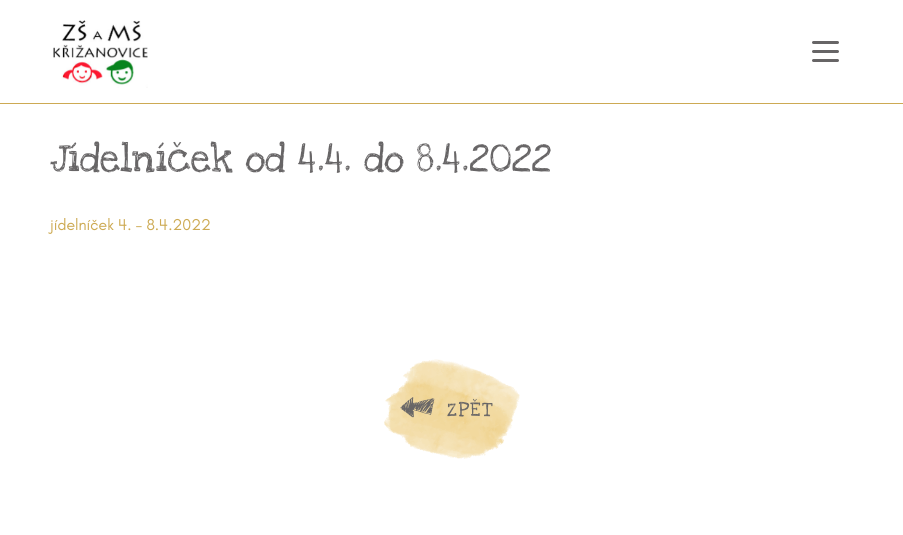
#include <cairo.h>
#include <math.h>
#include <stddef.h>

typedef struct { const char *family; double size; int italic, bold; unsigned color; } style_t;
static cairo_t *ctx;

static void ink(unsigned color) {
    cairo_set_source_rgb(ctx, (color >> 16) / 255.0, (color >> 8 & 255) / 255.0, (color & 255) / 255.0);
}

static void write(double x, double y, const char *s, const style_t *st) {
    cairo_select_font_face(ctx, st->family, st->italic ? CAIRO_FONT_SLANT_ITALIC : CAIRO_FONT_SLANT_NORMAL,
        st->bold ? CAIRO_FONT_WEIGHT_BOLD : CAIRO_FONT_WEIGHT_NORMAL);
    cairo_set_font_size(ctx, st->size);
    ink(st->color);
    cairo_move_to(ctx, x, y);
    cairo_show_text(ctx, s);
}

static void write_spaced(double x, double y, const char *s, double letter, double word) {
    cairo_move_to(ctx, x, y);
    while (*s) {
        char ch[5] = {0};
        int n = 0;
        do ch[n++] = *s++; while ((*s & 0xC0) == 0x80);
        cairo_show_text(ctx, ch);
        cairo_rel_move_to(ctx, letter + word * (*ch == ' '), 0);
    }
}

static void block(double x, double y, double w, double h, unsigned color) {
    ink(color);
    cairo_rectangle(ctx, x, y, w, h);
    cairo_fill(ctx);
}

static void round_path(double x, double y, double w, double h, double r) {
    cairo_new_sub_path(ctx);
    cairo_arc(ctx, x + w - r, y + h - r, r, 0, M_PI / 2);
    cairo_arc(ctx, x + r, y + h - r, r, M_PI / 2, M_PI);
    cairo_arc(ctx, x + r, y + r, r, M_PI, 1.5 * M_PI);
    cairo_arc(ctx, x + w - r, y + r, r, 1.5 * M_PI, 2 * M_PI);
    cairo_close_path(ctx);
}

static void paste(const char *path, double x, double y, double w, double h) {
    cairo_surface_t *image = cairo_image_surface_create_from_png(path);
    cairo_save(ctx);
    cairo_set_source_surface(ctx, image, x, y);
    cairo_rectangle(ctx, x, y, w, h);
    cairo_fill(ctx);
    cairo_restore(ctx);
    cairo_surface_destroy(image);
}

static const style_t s1 = {"Love Ya Like A Sister", 40, 0, 0, 0x676566};
static const style_t s2 = {"Teachers", 16, 0, 0, 0xcdaa53};

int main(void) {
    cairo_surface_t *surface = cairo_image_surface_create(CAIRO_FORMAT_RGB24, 903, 535);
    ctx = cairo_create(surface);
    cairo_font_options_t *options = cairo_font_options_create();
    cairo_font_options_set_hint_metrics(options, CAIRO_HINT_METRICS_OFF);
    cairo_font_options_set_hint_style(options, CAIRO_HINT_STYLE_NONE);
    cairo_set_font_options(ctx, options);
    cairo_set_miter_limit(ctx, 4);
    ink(0xffffff);
    cairo_paint(ctx);
    block(0, 103, 903, 1, 0xcdaa53);
    paste("pic1.png", 53, 20, 95, 68);
    ink(0x676566);
    round_path(812, 50, 27, 3, 1.5);
    cairo_fill(ctx);
    round_path(812, 41, 27, 3, 1.5);
    cairo_fill(ctx);
    round_path(812, 59, 27, 3, 1.5);
    cairo_fill(ctx);
    write(50, 171, "Jídelníček od 4.4. do 8.4.2022", &s1);
    write(50, 230, "jídelníček 4. – 8.4.2022", &s2);
    paste("pic2.png", 384, 359, 136, 100);
    paste("pic3.png", 400, 397, 35, 21);
    cairo_select_font_face(ctx, "Love Ya Like A Sister", CAIRO_FONT_SLANT_NORMAL, CAIRO_FONT_WEIGHT_NORMAL);
    cairo_set_font_size(ctx, 20);
    ink(0x676566);
    write_spaced(447, 416, "ZPĚT", 2, 0);
    cairo_surface_write_to_png(surface, "screenshot.png");
    cairo_font_options_destroy(options);
    cairo_destroy(ctx);
    cairo_surface_destroy(surface);
    return 0;
}
